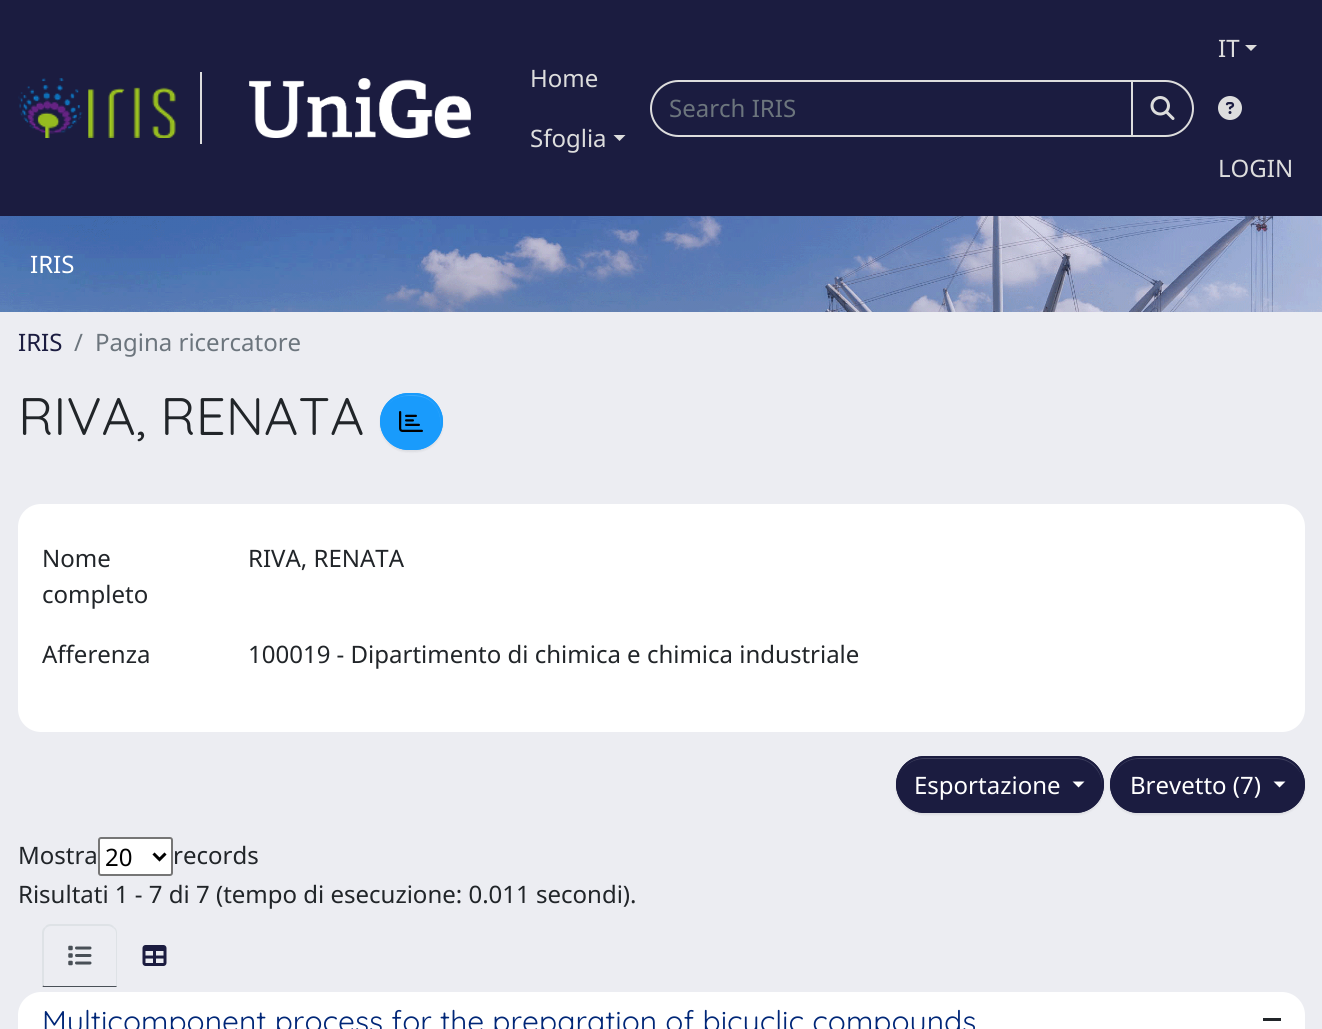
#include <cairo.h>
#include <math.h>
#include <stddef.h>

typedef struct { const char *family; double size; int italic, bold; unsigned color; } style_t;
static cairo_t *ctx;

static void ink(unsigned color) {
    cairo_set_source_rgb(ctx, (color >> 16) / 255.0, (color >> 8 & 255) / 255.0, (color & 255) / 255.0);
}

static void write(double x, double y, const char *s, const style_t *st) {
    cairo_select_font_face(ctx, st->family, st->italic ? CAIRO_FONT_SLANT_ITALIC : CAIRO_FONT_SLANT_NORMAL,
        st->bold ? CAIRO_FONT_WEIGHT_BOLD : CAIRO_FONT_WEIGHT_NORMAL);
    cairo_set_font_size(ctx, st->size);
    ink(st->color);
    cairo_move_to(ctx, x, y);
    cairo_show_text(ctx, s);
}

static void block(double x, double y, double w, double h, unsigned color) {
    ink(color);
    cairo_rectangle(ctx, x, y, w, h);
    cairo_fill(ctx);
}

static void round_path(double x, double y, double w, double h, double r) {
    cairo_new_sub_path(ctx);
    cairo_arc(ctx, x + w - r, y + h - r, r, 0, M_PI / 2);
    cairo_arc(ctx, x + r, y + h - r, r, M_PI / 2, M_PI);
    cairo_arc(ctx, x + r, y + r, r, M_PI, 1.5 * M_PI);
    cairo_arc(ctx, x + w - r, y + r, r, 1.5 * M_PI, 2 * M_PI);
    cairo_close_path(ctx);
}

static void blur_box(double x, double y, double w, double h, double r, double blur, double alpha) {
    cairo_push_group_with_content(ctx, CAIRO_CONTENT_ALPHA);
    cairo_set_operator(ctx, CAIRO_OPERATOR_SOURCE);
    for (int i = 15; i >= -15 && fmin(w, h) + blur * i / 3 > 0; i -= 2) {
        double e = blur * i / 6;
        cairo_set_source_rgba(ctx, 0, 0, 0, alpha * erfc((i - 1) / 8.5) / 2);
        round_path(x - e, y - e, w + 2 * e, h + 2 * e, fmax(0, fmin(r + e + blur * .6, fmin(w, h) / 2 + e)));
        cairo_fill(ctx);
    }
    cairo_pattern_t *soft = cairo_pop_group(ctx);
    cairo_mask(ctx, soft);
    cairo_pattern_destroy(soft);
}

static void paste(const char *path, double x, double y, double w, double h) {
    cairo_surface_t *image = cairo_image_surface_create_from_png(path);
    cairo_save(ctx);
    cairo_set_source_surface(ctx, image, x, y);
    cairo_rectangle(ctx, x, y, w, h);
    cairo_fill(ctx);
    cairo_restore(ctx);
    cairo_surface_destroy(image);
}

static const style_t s1 = {"Noto Sans", 24, 0, 0, 0xdddddd};
static const style_t s2 = {"Noto Sans", 24, 0, 0, 0x6c757d};
static const style_t s3 = {"Noto Sans", 24, 0, 0, 0xffffff};
static const style_t s4 = {"Noto Sans", 24, 0, 0, 0x1b1c40};
static const style_t s5 = {"Quicksand Light", 52.75, 0, 0, 0x212529};
static const style_t s6 = {"Noto Sans", 24, 0, 0, 0x212529};
static const style_t s7 = {"Noto Sans", 24, 0, 0, 0x000000};
static const style_t s8 = {"Quicksand Light", 30, 0, 0, 0x002677};

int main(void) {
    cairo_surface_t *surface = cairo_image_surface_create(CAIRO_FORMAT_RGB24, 1322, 1029);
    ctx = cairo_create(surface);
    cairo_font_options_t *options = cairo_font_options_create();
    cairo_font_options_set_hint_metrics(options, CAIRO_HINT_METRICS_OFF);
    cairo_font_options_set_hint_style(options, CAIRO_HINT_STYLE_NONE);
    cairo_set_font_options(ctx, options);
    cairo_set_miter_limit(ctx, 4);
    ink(0xecedf2);
    cairo_paint(ctx);
    block(0, 0, 1322, 216, 0x1b1c40);
    block(200, 72, 2, 72, 0xdddddd);
    paste("pic1.png", 18, 78, 158, 60);
    paste("pic2.png", 249, 78, 222, 60);
    write(530, 87, "Home", &s1);
    write(530, 147, "Sfoglia", &s1);
    cairo_new_path(ctx);
    cairo_move_to(ctx, 613.5, 135);
    cairo_line_to(ctx, 625.5, 135);
    cairo_line_to(ctx, 619.5, 141);
    cairo_close_path(ctx);
    cairo_fill(ctx);
    cairo_new_path(ctx);
    cairo_move_to(ctx, 678.5, 81);
    cairo_line_to(ctx, 1132, 81);
    cairo_line_to(ctx, 1132, 136);
    cairo_line_to(ctx, 678.5, 136);
    cairo_curve_to(ctx, 663.5, 136, 651, 123.5, 651, 108.5);
    cairo_curve_to(ctx, 651, 93.5, 663.5, 81, 678.5, 81);
    cairo_close_path(ctx);
    cairo_stroke(ctx);
    write(669, 117, "Search IRIS", &s2);
    ink(0x000000);
    blur_box(1131, 81, 63, 57, 28.5, 1, 0.07);
    ink(0x1b1c40);
    cairo_new_path(ctx);
    cairo_move_to(ctx, 1131, 80);
    cairo_line_to(ctx, 1165.5, 80);
    cairo_curve_to(ctx, 1181, 80, 1194, 93, 1194, 108.5);
    cairo_curve_to(ctx, 1194, 124, 1181, 137, 1165.5, 137);
    cairo_line_to(ctx, 1131, 137);
    cairo_close_path(ctx);
    cairo_fill(ctx);
    ink(0x3d3e5d);
    cairo_new_path(ctx);
    cairo_move_to(ctx, 1133, 81);
    cairo_line_to(ctx, 1133, 82);
    cairo_line_to(ctx, 1166, 82);
    cairo_curve_to(ctx, 1180, 82, 1192, 95, 1192, 110);
    cairo_curve_to(ctx, 1192, 115, 1190, 120, 1187, 124);
    cairo_curve_to(ctx, 1201, 107, 1188, 81, 1166, 81);
    cairo_close_path(ctx);
    cairo_fill(ctx);
    cairo_new_path(ctx);
    cairo_move_to(ctx, 1132, 81);
    cairo_line_to(ctx, 1165.5, 81);
    cairo_curve_to(ctx, 1180.5, 81, 1193, 93.5, 1193, 108.5);
    cairo_curve_to(ctx, 1193, 123.5, 1180.5, 136, 1165.5, 136);
    cairo_line_to(ctx, 1132, 136);
    cairo_close_path(ctx);
    ink(0xdddddd);
    cairo_stroke(ctx);
    paste("pic3.png", 1150, 96, 25, 24);
    write(1218, 57, "IT", &s1);
    cairo_new_path(ctx);
    cairo_move_to(ctx, 1245, 45);
    cairo_line_to(ctx, 1257, 45);
    cairo_line_to(ctx, 1251, 51);
    cairo_close_path(ctx);
    cairo_fill(ctx);
    paste("pic4.png", 1218, 96, 24, 24);
    write(1218, 177, "LOGIN", &s1);
    paste("pic5.png", 0, 216, 1322, 96);
    write(30, 273, "IRIS", &s3);
    write(18, 351, "IRIS", &s4);
    write(74, 351, "/", &s2);
    write(95, 351, "Pagina ricercatore", &s2);
    write(18, 435, "RIVA, RENATA", &s5);
    ink(0x000000);
    blur_box(380, 395, 63, 57, 28.5, 1, 0.07);
    ink(0x199bfc);
    round_path(380, 393, 63, 57, 28.5);
    cairo_fill(ctx);
    ink(0x3caafc);
    cairo_new_path(ctx);
    cairo_move_to(ctx, 408, 396);
    cairo_curve_to(ctx, 414, 396, 419, 396, 425, 398);
    cairo_curve_to(ctx, 437, 403, 442, 416, 440, 428);
    cairo_curve_to(ctx, 443, 416, 436, 402, 425, 397);
    cairo_curve_to(ctx, 420, 395, 416, 395, 411, 395);
    cairo_curve_to(ctx, 399, 395, 388, 400, 383, 411);
    cairo_curve_to(ctx, 381, 418, 380, 425, 382, 431);
    cairo_curve_to(ctx, 378, 415, 387, 396, 408, 396);
    cairo_close_path(ctx);
    cairo_fill(ctx);
    round_path(381, 394, 61, 55, 27.5);
    ink(0x199bfc);
    cairo_stroke(ctx);
    paste("pic6.png", 399, 411, 24, 21);
    ink(0xffffff);
    round_path(18, 504, 1287, 228, 23);
    cairo_fill(ctx);
    write(42, 567, "Nome", &s6);
    write(42, 603, "completo", &s6);
    write(248, 567, "RIVA, RENATA", &s6);
    write(42, 663, "Afferenza", &s6);
    write(248, 663, "100019 - Dipartimento di chimica e chimica industriale", &s6);
    ink(0x000000);
    blur_box(896, 758, 208, 57, 28.5, 1, 0.07);
    ink(0x1b1c40);
    round_path(896, 756, 208, 57, 28.5);
    cairo_fill(ctx);
    ink(0x3d3e5d);
    cairo_new_path(ctx);
    cairo_move_to(ctx, 924, 759);
    cairo_line_to(ctx, 1076, 759);
    cairo_curve_to(ctx, 1090, 759, 1102, 771, 1102, 786);
    cairo_curve_to(ctx, 1102, 793, 1100, 798, 1096, 803);
    cairo_curve_to(ctx, 1100, 798, 1103, 792, 1103, 785);
    cairo_curve_to(ctx, 1103, 770, 1091, 758, 1076, 758);
    cairo_line_to(ctx, 924, 758);
    cairo_curve_to(ctx, 909, 758, 897, 770, 897, 785);
    cairo_curve_to(ctx, 897, 771, 909, 759, 924, 759);
    cairo_close_path(ctx);
    cairo_fill(ctx);
    round_path(897, 757, 206, 55, 27.5);
    ink(0x1b1c40);
    cairo_stroke(ctx);
    write(914, 794, "Esportazione", &s3);
    cairo_new_path(ctx);
    cairo_move_to(ctx, 1072.5, 781.5);
    cairo_line_to(ctx, 1084.5, 781.5);
    cairo_line_to(ctx, 1078.5, 787.5);
    cairo_close_path(ctx);
    cairo_fill(ctx);
    ink(0x000000);
    blur_box(1110, 758, 195, 57, 28.5, 1, 0.07);
    ink(0x1b1c40);
    round_path(1110, 756, 195, 57, 28.5);
    cairo_fill(ctx);
    ink(0x3d3e5d);
    cairo_new_path(ctx);
    cairo_move_to(ctx, 1138, 759);
    cairo_line_to(ctx, 1276, 759);
    cairo_curve_to(ctx, 1291, 759, 1304, 771, 1304, 786);
    cairo_line_to(ctx, 1304, 785);
    cairo_curve_to(ctx, 1304, 770, 1292, 758, 1277, 758);
    cairo_line_to(ctx, 1139, 758);
    cairo_curve_to(ctx, 1124, 758, 1112, 770, 1112, 785);
    cairo_curve_to(ctx, 1112, 771, 1124, 759, 1138, 759);
    cairo_close_path(ctx);
    cairo_fill(ctx);
    round_path(1111, 757, 193, 55, 27.5);
    ink(0x1b1c40);
    cairo_stroke(ctx);
    write(1130, 794, "Brevetto (7)", &s3);
    cairo_new_path(ctx);
    cairo_move_to(ctx, 1273.5, 781.5);
    cairo_line_to(ctx, 1285.5, 781.5);
    cairo_line_to(ctx, 1279.5, 787.5);
    cairo_close_path(ctx);
    cairo_fill(ctx);
    write(18, 864, "Mostra", &s6);
    ink(0xffffff);
    round_path(99, 838, 73, 37, 2);
    cairo_fill_preserve(ctx);
    ink(0x767676);
    cairo_stroke(ctx);
    cairo_new_path(ctx);
    cairo_move_to(ctx, 153.5, 853.5);
    cairo_line_to(ctx, 159.5, 859.5);
    cairo_line_to(ctx, 165.5, 853.5);
    ink(0x000000);
    cairo_set_line_width(ctx, 3);
    cairo_stroke(ctx);
    write(105, 866, "20", &s7);
    write(173, 864, "records", &s6);
    write(18, 903, "Risultati 1 - 7 di 7 (tempo di esecuzione: 0.011 secondi).", &s6);
    ink(0xdee2e6);
    cairo_new_path(ctx);
    cairo_move_to(ctx, 51, 924);
    cairo_curve_to(ctx, 48, 924, 46, 925, 45, 927);
    cairo_line_to(ctx, 46, 928);
    cairo_curve_to(ctx, 47, 927, 49, 926, 51, 926);
    cairo_line_to(ctx, 108, 926);
    cairo_curve_to(ctx, 110, 926, 112, 927, 113, 928);
    cairo_line_to(ctx, 114, 927);
    cairo_curve_to(ctx, 113, 925, 110, 924, 108, 924);
    cairo_close_path(ctx);
    cairo_fill(ctx);
    cairo_new_path(ctx);
    cairo_move_to(ctx, 117, 987);
    cairo_line_to(ctx, 117, 933);
    cairo_curve_to(ctx, 117, 930, 116, 928, 114, 927);
    cairo_line_to(ctx, 113, 928);
    cairo_curve_to(ctx, 115, 929, 116, 931, 116, 933);
    cairo_line_to(ctx, 116, 986);
    cairo_close_path(ctx);
    cairo_fill(ctx);
    ink(0x495057);
    cairo_new_path(ctx);
    cairo_move_to(ctx, 117, 987);
    cairo_line_to(ctx, 116, 986);
    cairo_line_to(ctx, 44, 986);
    cairo_line_to(ctx, 44, 985);
    cairo_line_to(ctx, 42, 987);
    cairo_close_path(ctx);
    cairo_fill(ctx);
    ink(0xdee2e6);
    cairo_new_path(ctx);
    cairo_move_to(ctx, 42, 987);
    cairo_line_to(ctx, 44, 985);
    cairo_line_to(ctx, 44, 933);
    cairo_curve_to(ctx, 44, 931, 45, 929, 46, 928);
    cairo_line_to(ctx, 45, 927);
    cairo_curve_to(ctx, 43, 928, 42, 930, 42, 933);
    cairo_close_path(ctx);
    cairo_fill(ctx);
    paste("pic7.png", 68, 945, 24, 21);
    paste("pic8.png", 142, 945, 25, 21);
    ink(0xffffff);
    cairo_new_path(ctx);
    cairo_move_to(ctx, 41, 992);
    cairo_line_to(ctx, 1282, 992);
    cairo_curve_to(ctx, 1294.5, 992, 1305, 1002.5, 1305, 1015);
    cairo_line_to(ctx, 1305, 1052);
    cairo_line_to(ctx, 18, 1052);
    cairo_line_to(ctx, 18, 1015);
    cairo_curve_to(ctx, 18, 1002.5, 28.5, 992, 41, 992);
    cairo_close_path(ctx);
    cairo_fill(ctx);
    write(42, 1032, "Multicomponent process for the preparation of bicyclic compounds", &s8);
    block(1263, 1018, 18, 3, 0x212529);
    cairo_surface_write_to_png(surface, "screenshot.png");
    cairo_font_options_destroy(options);
    cairo_destroy(ctx);
    cairo_surface_destroy(surface);
    return 0;
}
